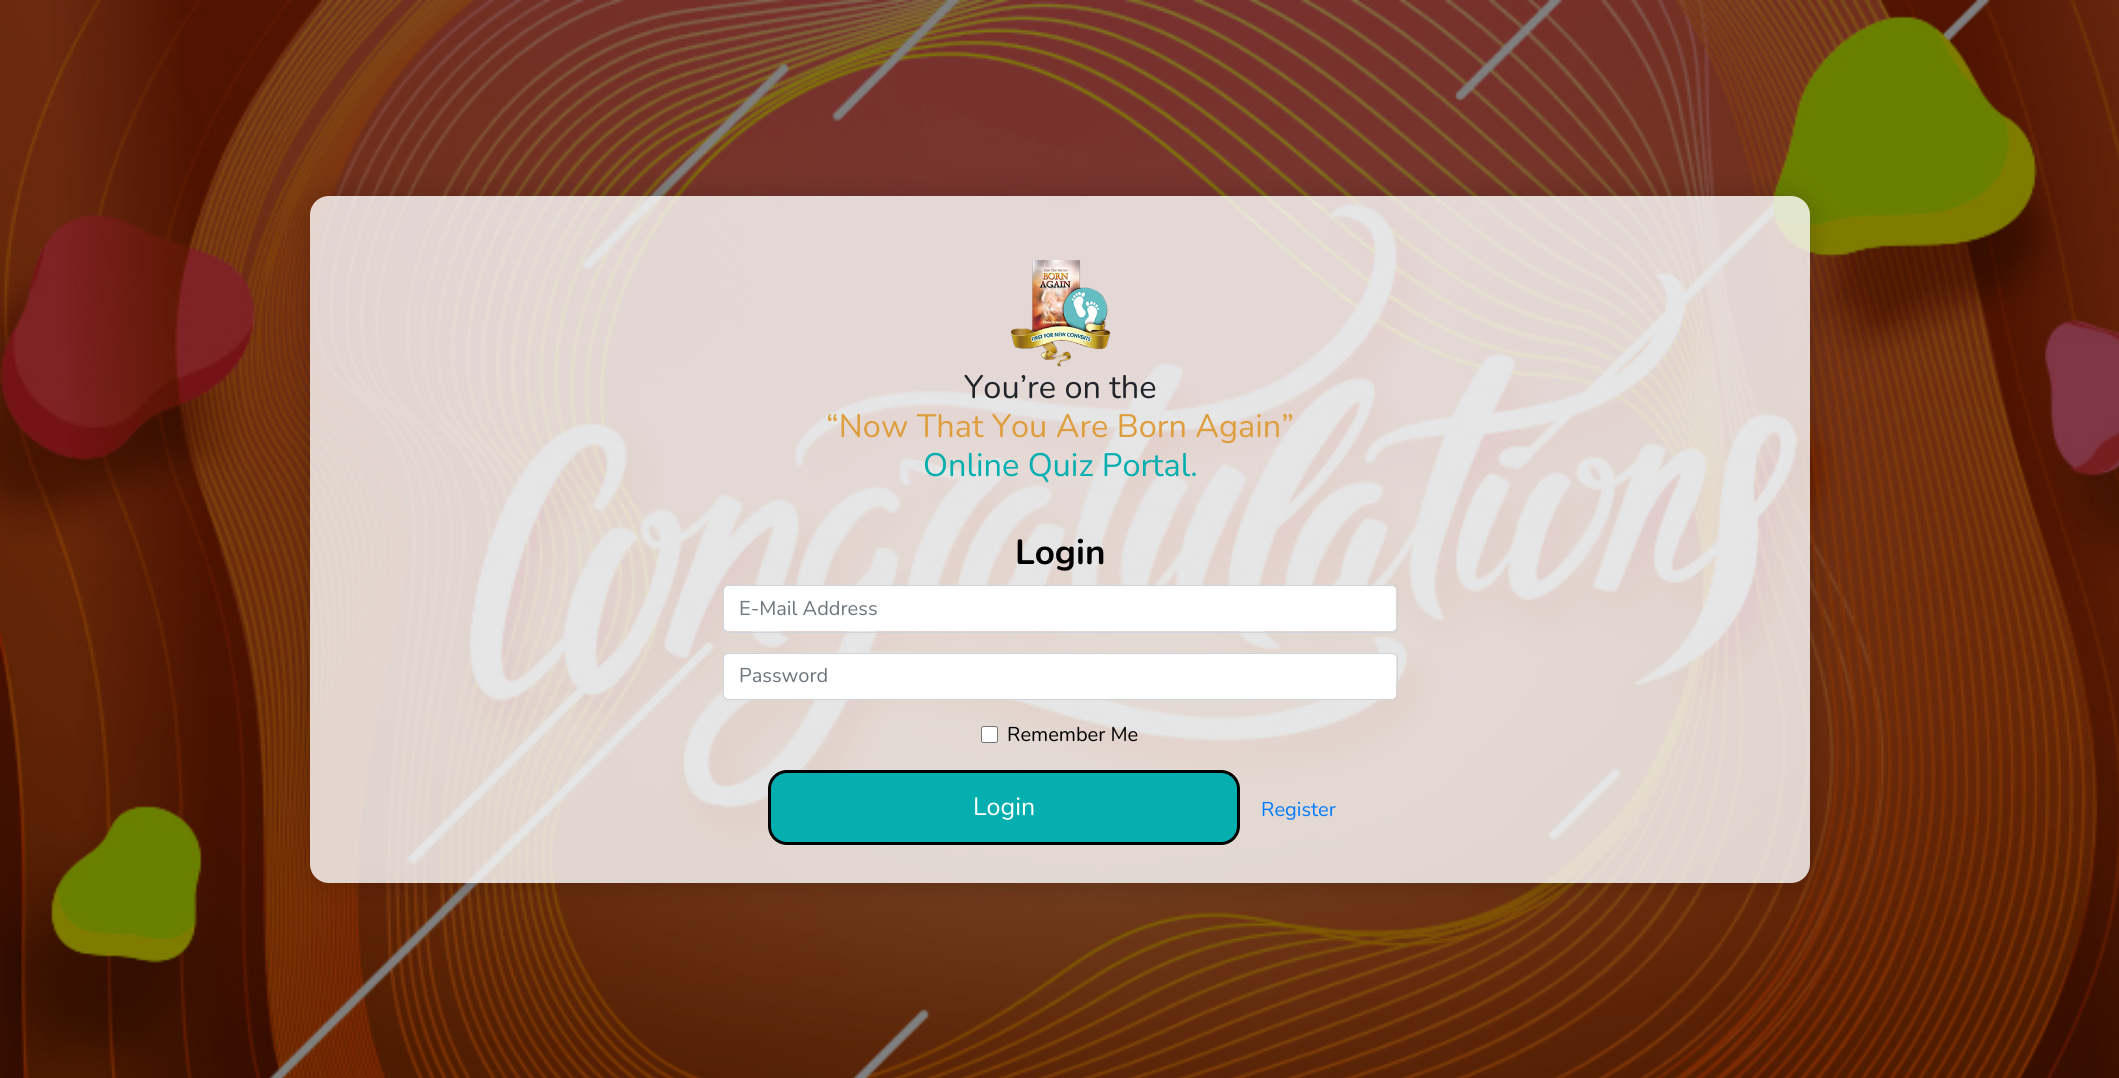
#include <cairo.h>
#include <math.h>
#include <stddef.h>

typedef struct { const char *family; double size; int italic, bold; unsigned color; } style_t;
static cairo_t *ctx;

static void ink(unsigned color) {
    cairo_set_source_rgb(ctx, (color >> 16) / 255.0, (color >> 8 & 255) / 255.0, (color & 255) / 255.0);
}

static void write(double x, double y, const char *s, const style_t *st) {
    cairo_select_font_face(ctx, st->family, st->italic ? CAIRO_FONT_SLANT_ITALIC : CAIRO_FONT_SLANT_NORMAL,
        st->bold ? CAIRO_FONT_WEIGHT_BOLD : CAIRO_FONT_WEIGHT_NORMAL);
    cairo_set_font_size(ctx, st->size);
    ink(st->color);
    cairo_move_to(ctx, x, y);
    cairo_show_text(ctx, s);
}

static void round_path(double x, double y, double w, double h, double r) {
    cairo_new_sub_path(ctx);
    cairo_arc(ctx, x + w - r, y + h - r, r, 0, M_PI / 2);
    cairo_arc(ctx, x + r, y + h - r, r, M_PI / 2, M_PI);
    cairo_arc(ctx, x + r, y + r, r, M_PI, 1.5 * M_PI);
    cairo_arc(ctx, x + w - r, y + r, r, 1.5 * M_PI, 2 * M_PI);
    cairo_close_path(ctx);
}

static void blur_box(double x, double y, double w, double h, double r, double blur, double alpha) {
    cairo_push_group_with_content(ctx, CAIRO_CONTENT_ALPHA);
    cairo_set_operator(ctx, CAIRO_OPERATOR_SOURCE);
    for (int i = 15; i >= -15 && fmin(w, h) + blur * i / 3 > 0; i -= 2) {
        double e = blur * i / 6;
        cairo_set_source_rgba(ctx, 0, 0, 0, alpha * erfc((i - 1) / 8.5) / 2);
        round_path(x - e, y - e, w + 2 * e, h + 2 * e, fmax(0, fmin(r + e + blur * .6, fmin(w, h) / 2 + e)));
        cairo_fill(ctx);
    }
    cairo_pattern_t *soft = cairo_pop_group(ctx);
    cairo_mask(ctx, soft);
    cairo_pattern_destroy(soft);
}

static void paste(const char *path, double x, double y, double w, double h) {
    cairo_surface_t *image = cairo_image_surface_create_from_png(path);
    cairo_save(ctx);
    cairo_set_source_surface(ctx, image, x, y);
    cairo_rectangle(ctx, x, y, w, h);
    cairo_fill(ctx);
    cairo_restore(ctx);
    cairo_surface_destroy(image);
}

static const style_t s1 = {"Nunito", 32.5, 0, 0, 0x212529};
static const style_t s2 = {"Nunito", 32.5, 0, 0, 0xdf9e3e};
static const style_t s3 = {"Nunito", 32.5, 0, 0, 0x05afaf};
static const style_t s4 = {"Nunito", 35, 0, 1, 0x000000};
static const style_t s5 = {"Nunito", 20, 0, 0, 0x6c757d};
static const style_t s6 = {"Nunito", 20, 0, 0, 0x000000};
static const style_t s7 = {"Nunito", 25, 0, 0, 0xffffff};
static const style_t s8 = {"Nunito", 20, 0, 0, 0x007bff};

int main(void) {
    cairo_surface_t *surface = cairo_image_surface_create(CAIRO_FORMAT_RGB24, 2119, 1078);
    ctx = cairo_create(surface);
    cairo_font_options_t *options = cairo_font_options_create();
    cairo_font_options_set_hint_metrics(options, CAIRO_HINT_METRICS_OFF);
    cairo_font_options_set_hint_style(options, CAIRO_HINT_STYLE_NONE);
    cairo_set_font_options(ctx, options);
    cairo_set_miter_limit(ctx, 4);
    ink(0xffffff);
    cairo_paint(ctx);
    paste("pic1.png", 0, 0, 2119, 1078);
    cairo_save(ctx);
    cairo_set_fill_rule(ctx, CAIRO_FILL_RULE_EVEN_ODD);
    cairo_new_path(ctx);
    cairo_move_to(ctx, 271, 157);
    cairo_line_to(ctx, 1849, 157);
    cairo_line_to(ctx, 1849, 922);
    cairo_line_to(ctx, 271, 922);
    cairo_close_path(ctx);
    cairo_move_to(ctx, 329, 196);
    cairo_line_to(ctx, 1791, 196);
    cairo_curve_to(ctx, 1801.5, 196, 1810, 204.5, 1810, 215);
    cairo_line_to(ctx, 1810, 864);
    cairo_curve_to(ctx, 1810, 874.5, 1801.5, 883, 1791, 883);
    cairo_line_to(ctx, 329, 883);
    cairo_curve_to(ctx, 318.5, 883, 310, 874.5, 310, 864);
    cairo_line_to(ctx, 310, 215);
    cairo_curve_to(ctx, 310, 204.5, 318.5, 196, 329, 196);
    cairo_close_path(ctx);
    cairo_clip(ctx);
    ink(0x000000);
    blur_box(310, 196, 1500, 687, 19, 12.5, 0.2);
    cairo_restore(ctx);
    cairo_set_source_rgba(ctx, 1, 1, 1, 0.8);
    round_path(310, 196, 1500, 687, 19);
    cairo_fill(ctx);
    paste("pic2.png", 1010, 260, 101, 107);
    write(964, 398, "You’re on the", &s1);
    write(826, 437, "“Now That You Are Born Again”", &s2);
    write(923, 476, "Online Quiz Portal.", &s3);
    write(1015, 564, "Login", &s4);
    ink(0xffffff);
    round_path(724, 586, 672, 45, 4);
    cairo_fill(ctx);
    round_path(723.5, 585.5, 674, 47, 4.5);
    ink(0xced4da);
    cairo_set_line_width(ctx, 1);
    cairo_stroke(ctx);
    write(739, 615, "E-Mail Address", &s5);
    ink(0xffffff);
    round_path(724, 654, 672, 45, 4);
    cairo_fill(ctx);
    round_path(723.5, 653.5, 674, 46, 4.5);
    ink(0xced4da);
    cairo_stroke(ctx);
    write(739, 682, "Password", &s5);
    ink(0xffffff);
    round_path(981.5, 726.5, 16, 16, 2);
    cairo_fill_preserve(ctx);
    ink(0x767676);
    cairo_stroke(ctx);
    write(1007, 741, "Remember Me", &s6);
    ink(0x05afaf);
    round_path(769.5, 771.5, 469, 72, 17.5);
    cairo_fill_preserve(ctx);
    ink(0x000000);
    cairo_set_line_width(ctx, 3);
    cairo_stroke(ctx);
    write(973, 815, "Login", &s7);
    write(1261, 816, "Register", &s8);
    cairo_surface_write_to_png(surface, "screenshot.png");
    cairo_font_options_destroy(options);
    cairo_destroy(ctx);
    cairo_surface_destroy(surface);
    return 0;
}
